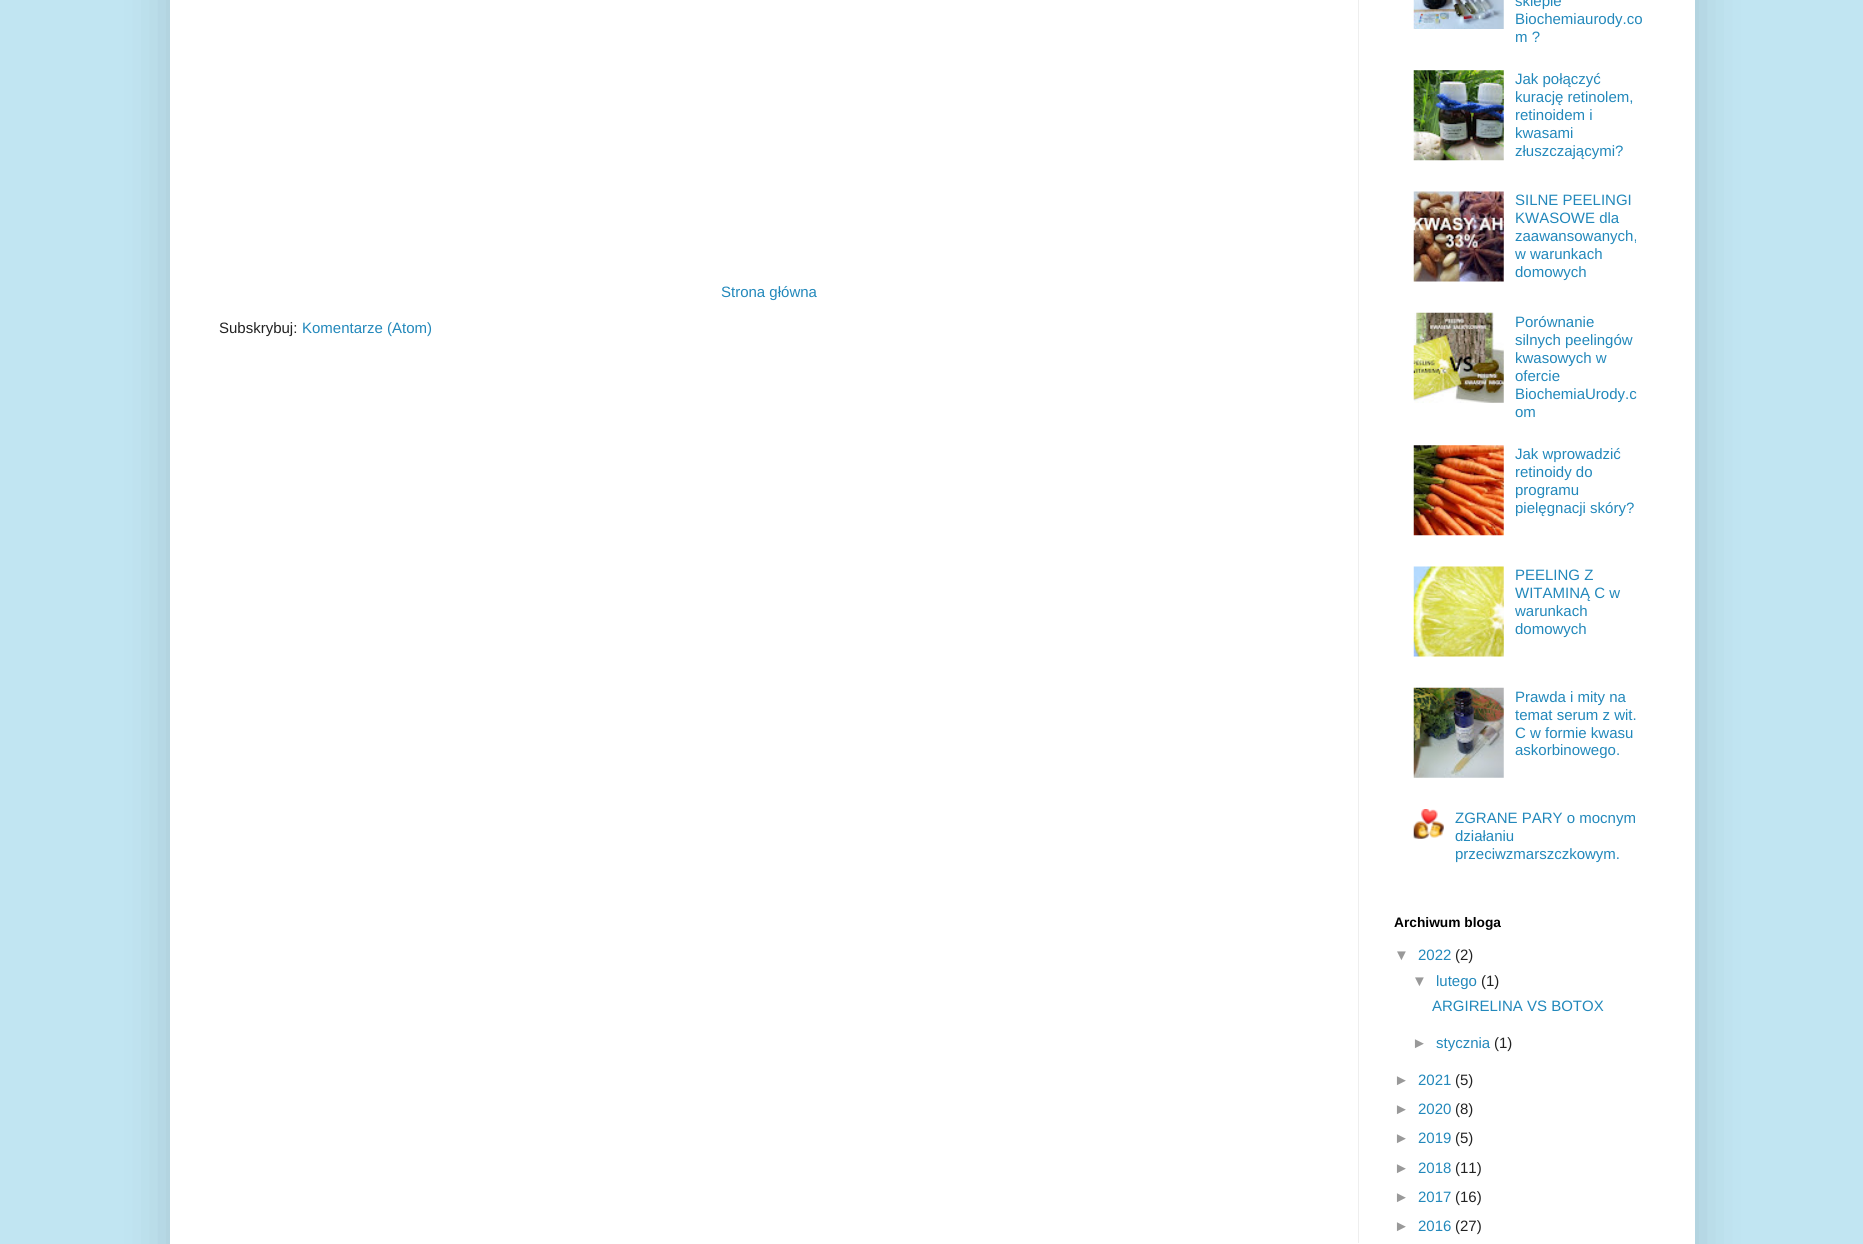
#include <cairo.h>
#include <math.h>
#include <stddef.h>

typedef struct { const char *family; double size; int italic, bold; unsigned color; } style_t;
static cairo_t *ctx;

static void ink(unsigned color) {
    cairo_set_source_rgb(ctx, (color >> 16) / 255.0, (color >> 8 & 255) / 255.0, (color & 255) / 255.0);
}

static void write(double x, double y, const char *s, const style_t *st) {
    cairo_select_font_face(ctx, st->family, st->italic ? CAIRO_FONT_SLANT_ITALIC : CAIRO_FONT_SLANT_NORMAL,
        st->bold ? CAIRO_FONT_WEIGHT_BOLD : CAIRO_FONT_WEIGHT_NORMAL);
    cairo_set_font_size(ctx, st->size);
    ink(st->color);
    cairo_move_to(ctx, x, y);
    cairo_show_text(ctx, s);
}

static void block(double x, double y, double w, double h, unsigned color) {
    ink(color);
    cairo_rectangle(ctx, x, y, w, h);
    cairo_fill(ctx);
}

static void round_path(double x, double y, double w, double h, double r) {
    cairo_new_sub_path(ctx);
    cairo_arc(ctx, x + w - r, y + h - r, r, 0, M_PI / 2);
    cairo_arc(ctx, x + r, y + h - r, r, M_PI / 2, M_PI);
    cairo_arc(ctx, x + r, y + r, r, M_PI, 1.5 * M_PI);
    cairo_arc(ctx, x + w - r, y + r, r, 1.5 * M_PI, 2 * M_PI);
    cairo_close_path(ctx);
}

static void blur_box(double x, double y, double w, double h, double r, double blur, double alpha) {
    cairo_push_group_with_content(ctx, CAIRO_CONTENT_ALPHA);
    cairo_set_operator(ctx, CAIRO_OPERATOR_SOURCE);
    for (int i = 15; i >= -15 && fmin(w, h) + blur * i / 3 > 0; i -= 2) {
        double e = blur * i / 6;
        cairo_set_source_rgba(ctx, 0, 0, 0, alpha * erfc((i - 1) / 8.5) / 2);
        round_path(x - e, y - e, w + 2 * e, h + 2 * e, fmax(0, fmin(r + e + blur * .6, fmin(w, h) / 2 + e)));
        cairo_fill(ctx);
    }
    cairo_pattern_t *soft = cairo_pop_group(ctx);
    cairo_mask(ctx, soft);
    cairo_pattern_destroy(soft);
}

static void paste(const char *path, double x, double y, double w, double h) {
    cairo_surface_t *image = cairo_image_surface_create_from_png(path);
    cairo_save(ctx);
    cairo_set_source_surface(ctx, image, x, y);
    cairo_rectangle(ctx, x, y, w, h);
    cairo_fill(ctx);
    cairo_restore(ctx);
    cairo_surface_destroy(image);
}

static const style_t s1 = {"Liberation Sans", 15, 0, 0, 0x2288bb};
static const style_t s2 = {"Liberation Sans", 15, 0, 0, 0x222222};
static const style_t s3 = {"Liberation Sans", 13.75, 0, 1, 0x000000};
static const style_t s4 = {"Liberation Sans", 15, 0, 0, 0x999999};

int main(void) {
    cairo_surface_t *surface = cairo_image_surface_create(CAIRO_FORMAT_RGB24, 1863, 1244);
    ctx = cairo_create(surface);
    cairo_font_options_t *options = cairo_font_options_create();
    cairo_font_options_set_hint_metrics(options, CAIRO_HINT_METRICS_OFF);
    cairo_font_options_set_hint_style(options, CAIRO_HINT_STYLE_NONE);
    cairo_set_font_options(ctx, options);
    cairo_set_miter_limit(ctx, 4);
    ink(0xc1e5f2);
    cairo_paint(ctx);
    ink(0x000000);
    blur_box(170, -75, 1525, 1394, 0, 25, 0.15);
    block(170, 0, 1525, 1244, 0xffffff);
    write(721, 297, "Strona główna", &s1);
    write(219, 333, "Subskrybuj:", &s2);
    write(302, 333, "Komentarze (Atom)", &s1);
    paste("pic1.png", 1413, 0, 91, 29);
    write(1515, 6, "sklepie", &s1);
    write(1515, 24, "Biochemiaurody.co", &s1);
    write(1515, 42, "m ?", &s1);
    paste("pic2.png", 1413, 70, 91, 91);
    write(1515, 84, "Jak połączyć", &s1);
    write(1515, 102, "kurację retinolem,", &s1);
    write(1515, 120, "retinoidem i", &s1);
    write(1515, 138, "kwasami", &s1);
    write(1515, 156, "złuszczającymi?", &s1);
    paste("pic3.png", 1413, 191, 91, 91);
    write(1515, 205, "SILNE PEELINGI", &s1);
    write(1515, 223, "KWASOWE dla", &s1);
    write(1515, 241, "zaawansowanych,", &s1);
    write(1515, 259, "w warunkach", &s1);
    write(1515, 277, "domowych", &s1);
    paste("pic4.png", 1413, 312, 91, 91);
    write(1515, 327, "Porównanie", &s1);
    write(1515, 345, "silnych peelingów", &s1);
    write(1515, 363, "kwasowych w", &s1);
    write(1515, 381, "ofercie", &s1);
    write(1515, 399, "BiochemiaUrody.c", &s1);
    write(1515, 417, "om", &s1);
    paste("pic5.png", 1413, 445, 91, 91);
    write(1515, 459, "Jak wprowadzić", &s1);
    write(1515, 477, "retinoidy do", &s1);
    write(1515, 495, "programu", &s1);
    write(1515, 513, "pielęgnacji skóry?", &s1);
    paste("pic6.png", 1413, 566, 91, 91);
    write(1515, 580, "PEELING Z", &s1);
    write(1515, 598, "WITAMINĄ C w", &s1);
    write(1515, 616, "warunkach", &s1);
    write(1515, 634, "domowych", &s1);
    paste("pic7.png", 1413, 687, 91, 91);
    write(1515, 702, "Prawda i mity na", &s1);
    write(1515, 720, "temat serum z wit.", &s1);
    write(1515, 738, "C w formie kwasu", &s1);
    write(1515, 755, "askorbinowego.", &s1);
    paste("pic8.png", 1413, 809, 31, 30);
    write(1455, 823, "ZGRANE PARY o mocnym", &s1);
    write(1455, 841, "działaniu", &s1);
    write(1455, 859, "przeciwzmarszczkowym.", &s1);
    write(1394, 927, "Archiwum bloga", &s3);
    write(1394, 960, "▼", &s4);
    write(1418, 960, "2022", &s1);
    write(1455, 960, "(2)", &s2);
    write(1412, 986, "▼", &s4);
    write(1436, 986, "lutego", &s1);
    write(1481, 986, "(1)", &s2);
    write(1432, 1011, "ARGIRELINA VS BOTOX", &s1);
    write(1412, 1048, "►", &s4);
    write(1436, 1048, "stycznia", &s1);
    write(1494, 1048, "(1)", &s2);
    write(1394, 1085, "►", &s4);
    write(1418, 1085, "2021", &s1);
    write(1455, 1085, "(5)", &s2);
    write(1394, 1114, "►", &s4);
    write(1418, 1114, "2020", &s1);
    write(1455, 1114, "(8)", &s2);
    write(1394, 1143, "►", &s4);
    write(1418, 1143, "2019", &s1);
    write(1455, 1143, "(5)", &s2);
    write(1394, 1173, "►", &s4);
    write(1418, 1173, "2018", &s1);
    write(1455, 1173, "(11)", &s2);
    write(1394, 1202, "►", &s4);
    write(1418, 1202, "2017", &s1);
    write(1455, 1202, "(16)", &s2);
    write(1394, 1231, "►", &s4);
    write(1418, 1231, "2016", &s1);
    write(1455, 1231, "(27)", &s2);
    block(1358, 0, 1, 1243, 0xeeeeee);
    cairo_surface_write_to_png(surface, "screenshot.png");
    cairo_font_options_destroy(options);
    cairo_destroy(ctx);
    cairo_surface_destroy(surface);
    return 0;
}
